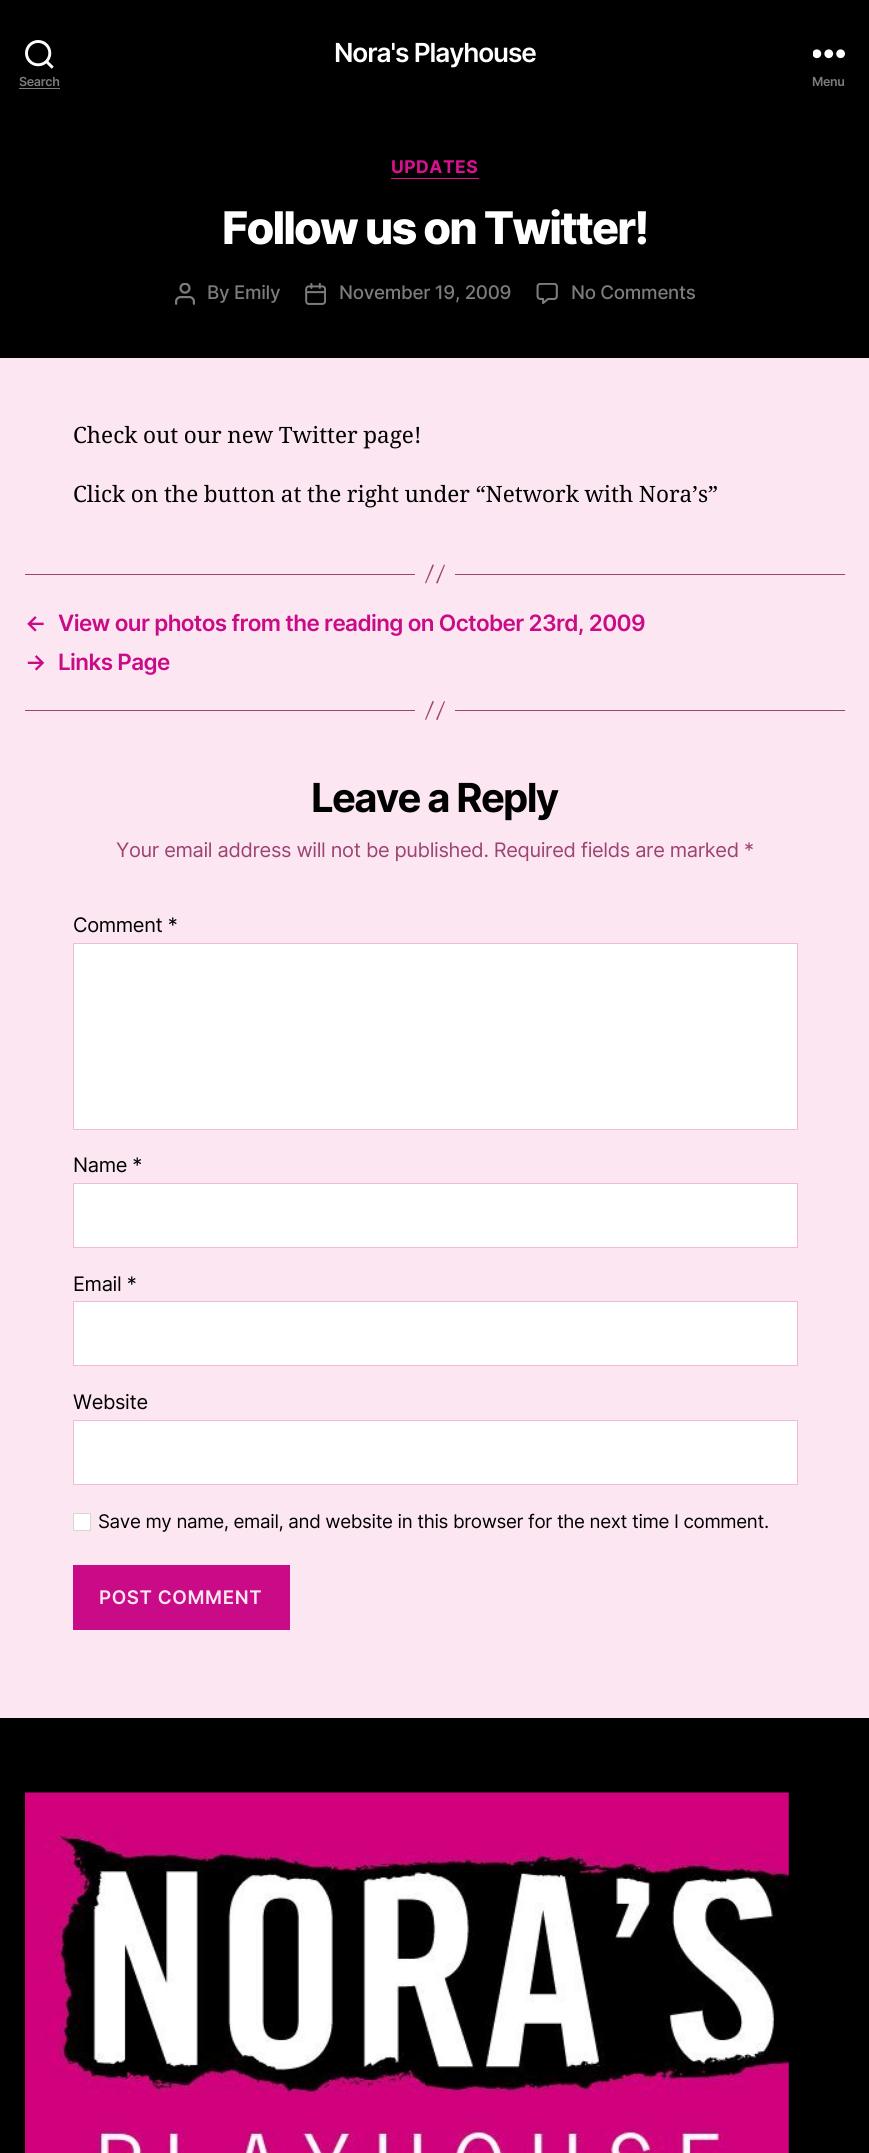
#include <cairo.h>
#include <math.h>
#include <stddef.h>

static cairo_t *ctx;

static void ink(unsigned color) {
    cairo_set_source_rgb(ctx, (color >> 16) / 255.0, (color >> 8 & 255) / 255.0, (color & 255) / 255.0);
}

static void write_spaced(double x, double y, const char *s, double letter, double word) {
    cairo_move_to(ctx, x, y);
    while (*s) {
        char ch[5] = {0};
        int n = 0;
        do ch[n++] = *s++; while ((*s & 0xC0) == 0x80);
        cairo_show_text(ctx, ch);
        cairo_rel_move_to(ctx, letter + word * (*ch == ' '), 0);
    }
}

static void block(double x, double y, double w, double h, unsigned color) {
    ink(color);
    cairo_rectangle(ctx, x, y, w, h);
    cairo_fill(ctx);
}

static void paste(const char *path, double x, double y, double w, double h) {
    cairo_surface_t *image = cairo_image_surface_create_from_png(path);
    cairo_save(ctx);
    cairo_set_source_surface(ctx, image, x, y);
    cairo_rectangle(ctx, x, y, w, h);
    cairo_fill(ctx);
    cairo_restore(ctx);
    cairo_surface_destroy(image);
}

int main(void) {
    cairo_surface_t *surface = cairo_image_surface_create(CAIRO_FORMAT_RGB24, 869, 2153);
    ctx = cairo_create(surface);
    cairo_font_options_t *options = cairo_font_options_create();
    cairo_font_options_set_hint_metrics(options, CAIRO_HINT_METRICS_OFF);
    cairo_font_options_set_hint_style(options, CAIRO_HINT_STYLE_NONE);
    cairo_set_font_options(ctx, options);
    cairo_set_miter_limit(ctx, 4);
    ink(0xfce6f1);
    cairo_paint(ctx);
    block(0, 0, 869, 358, 0x000000);
    cairo_select_font_face(ctx, "Inter SemiBold", CAIRO_FONT_SLANT_NORMAL, CAIRO_FONT_WEIGHT_NORMAL);
    cairo_set_font_size(ctx, 26.25);
    ink(0xffffff);
    write_spaced(334, 62, "Nora's Playhouse", -1.1, 0);
    paste("pic1.png", 25, 40, 29, 29);
    cairo_set_font_size(ctx, 12.5);
    ink(0x7c7c7c);
    write_spaced(19, 86, "Search", -0.35, 0);
    block(19, 88, 41, 1, 0x7c7c7c);
    paste("pic2.png", 813, 49, 32, 10);
    write_spaced(812, 86, "Menu", -0.35, 0);
    block(391, 178, 88, 1, 0xdb0f93);
    cairo_select_font_face(ctx, "Inter", CAIRO_FONT_SLANT_NORMAL, CAIRO_FONT_WEIGHT_BOLD);
    cairo_set_font_size(ctx, 17.5);
    write_spaced(391, 173, "UPDATES", 0.5, 0);
    cairo_select_font_face(ctx, "Inter ExtraBold", CAIRO_FONT_SLANT_NORMAL, CAIRO_FONT_WEIGHT_NORMAL);
    cairo_set_font_size(ctx, 45);
    ink(0xffffff);
    write_spaced(222, 244, "Follow us on Twitter!", -1.9, 0);
    paste("pic3.png", 175, 283, 20, 22);
    cairo_select_font_face(ctx, "Inter Medium", CAIRO_FONT_SLANT_NORMAL, CAIRO_FONT_WEIGHT_NORMAL);
    cairo_set_font_size(ctx, 18.75);
    ink(0x7c7c7c);
    write_spaced(207, 299, "By Emily", -0.3, 0);
    paste("pic4.png", 305, 283, 21, 22);
    write_spaced(339, 299, "November 19, 2009", -0.3, 0);
    paste("pic5.png", 536, 283, 22, 21);
    write_spaced(571, 299, "No Comments", -0.3, 0);
    cairo_select_font_face(ctx, "Noto Serif", CAIRO_FONT_SLANT_NORMAL, CAIRO_FONT_WEIGHT_NORMAL);
    cairo_set_font_size(ctx, 22.5);
    ink(0x000000);
    write_spaced(73, 443, "Check out our new Twitter page!", 0, -0.25);
    write_spaced(73, 502, "Click on the button at the right under “Network with Nora’s”", 0, -0.25);
    block(455, 574, 390, 1, 0x9c4371);
    block(25, 574, 390, 1, 0x9c4371);
    cairo_new_path(ctx);
    cairo_move_to(ctx, 432.5, 564.5);
    cairo_line_to(ctx, 434, 565);
    cairo_line_to(ctx, 426, 583.5);
    cairo_line_to(ctx, 425, 583);
    cairo_close_path(ctx);
    cairo_move_to(ctx, 444, 564.5);
    cairo_line_to(ctx, 445, 565);
    cairo_line_to(ctx, 437.5, 583.5);
    cairo_line_to(ctx, 436, 583);
    cairo_close_path(ctx);
    cairo_fill(ctx);
    cairo_select_font_face(ctx, "Inter SemiBold", CAIRO_FONT_SLANT_NORMAL, CAIRO_FONT_WEIGHT_NORMAL);
    ink(0xca0b87);
    write_spaced(25, 631, "←", -0.62, 0);
    write_spaced(58, 631, "View our photos from the reading on October 23rd, 2009", -0.62, 0);
    write_spaced(25, 670, "→", -0.62, 0);
    write_spaced(58, 670, "Links Page", -0.62, 0);
    block(455, 710, 390, 1, 0x9c4371);
    block(25, 710, 390, 1, 0x9c4371);
    cairo_new_path(ctx);
    cairo_move_to(ctx, 432.5, 701);
    cairo_line_to(ctx, 434, 701.5);
    cairo_line_to(ctx, 426, 720);
    cairo_line_to(ctx, 425, 719.5);
    cairo_close_path(ctx);
    cairo_move_to(ctx, 444, 701);
    cairo_line_to(ctx, 445, 701.5);
    cairo_line_to(ctx, 437.5, 720);
    cairo_line_to(ctx, 436, 719.5);
    cairo_close_path(ctx);
    cairo_fill(ctx);
    cairo_select_font_face(ctx, "Inter", CAIRO_FONT_SLANT_NORMAL, CAIRO_FONT_WEIGHT_BOLD);
    cairo_set_font_size(ctx, 40);
    ink(0x000000);
    write_spaced(311, 812, "Leave a Reply", -1.7, 0);
    cairo_select_font_face(ctx, "Inter", CAIRO_FONT_SLANT_NORMAL, CAIRO_FONT_WEIGHT_NORMAL);
    cairo_set_font_size(ctx, 20);
    ink(0x9c4371);
    write_spaced(116, 857, "Your email address will not be published. Required fields are marked *", -0.35, 0);
    ink(0x000000);
    write_spaced(73, 932, "Comment *", -0.35, 0);
    ink(0xffffff);
    cairo_rectangle(ctx, 73.5, 943.5, 724, 186);
    cairo_fill_preserve(ctx);
    ink(0xf1bbd7);
    cairo_set_line_width(ctx, 1);
    cairo_stroke(ctx);
    ink(0x000000);
    write_spaced(73, 1172, "Name *", -0.35, 0);
    ink(0xffffff);
    cairo_rectangle(ctx, 73.5, 1183.5, 724, 64);
    cairo_fill_preserve(ctx);
    ink(0xf1bbd7);
    cairo_stroke(ctx);
    ink(0x000000);
    write_spaced(73, 1291, "Email *", -0.35, 0);
    ink(0xffffff);
    cairo_rectangle(ctx, 73.5, 1301.5, 724, 64);
    cairo_fill_preserve(ctx);
    ink(0xf1bbd7);
    cairo_stroke(ctx);
    ink(0x000000);
    write_spaced(73, 1409, "Website", -0.35, 0);
    ink(0xffffff);
    cairo_rectangle(ctx, 73.5, 1420.5, 724, 64);
    cairo_fill_preserve(ctx);
    ink(0xf1bbd7);
    cairo_stroke(ctx);
    ink(0xffffff);
    cairo_rectangle(ctx, 73.5, 1513.5, 17, 17);
    cairo_fill_preserve(ctx);
    ink(0xdcd7ca);
    cairo_stroke(ctx);
    cairo_set_font_size(ctx, 18.75);
    ink(0x000000);
    write_spaced(98, 1528, "Save my name, email, and website in this browser for the next time I comment.", -0.35, 0);
    block(73, 1565, 217, 65, 0xca0b87);
    cairo_select_font_face(ctx, "Inter SemiBold", CAIRO_FONT_SLANT_NORMAL, CAIRO_FONT_WEIGHT_NORMAL);
    ink(0xfce6f1);
    write_spaced(99, 1604, "POST COMMENT", 0.6, 0);
    block(0, 1718, 869, 435, 0x000000);
    paste("pic6.png", 25, 1792, 764, 361);
    cairo_surface_write_to_png(surface, "screenshot.png");
    cairo_font_options_destroy(options);
    cairo_destroy(ctx);
    cairo_surface_destroy(surface);
    return 0;
}
